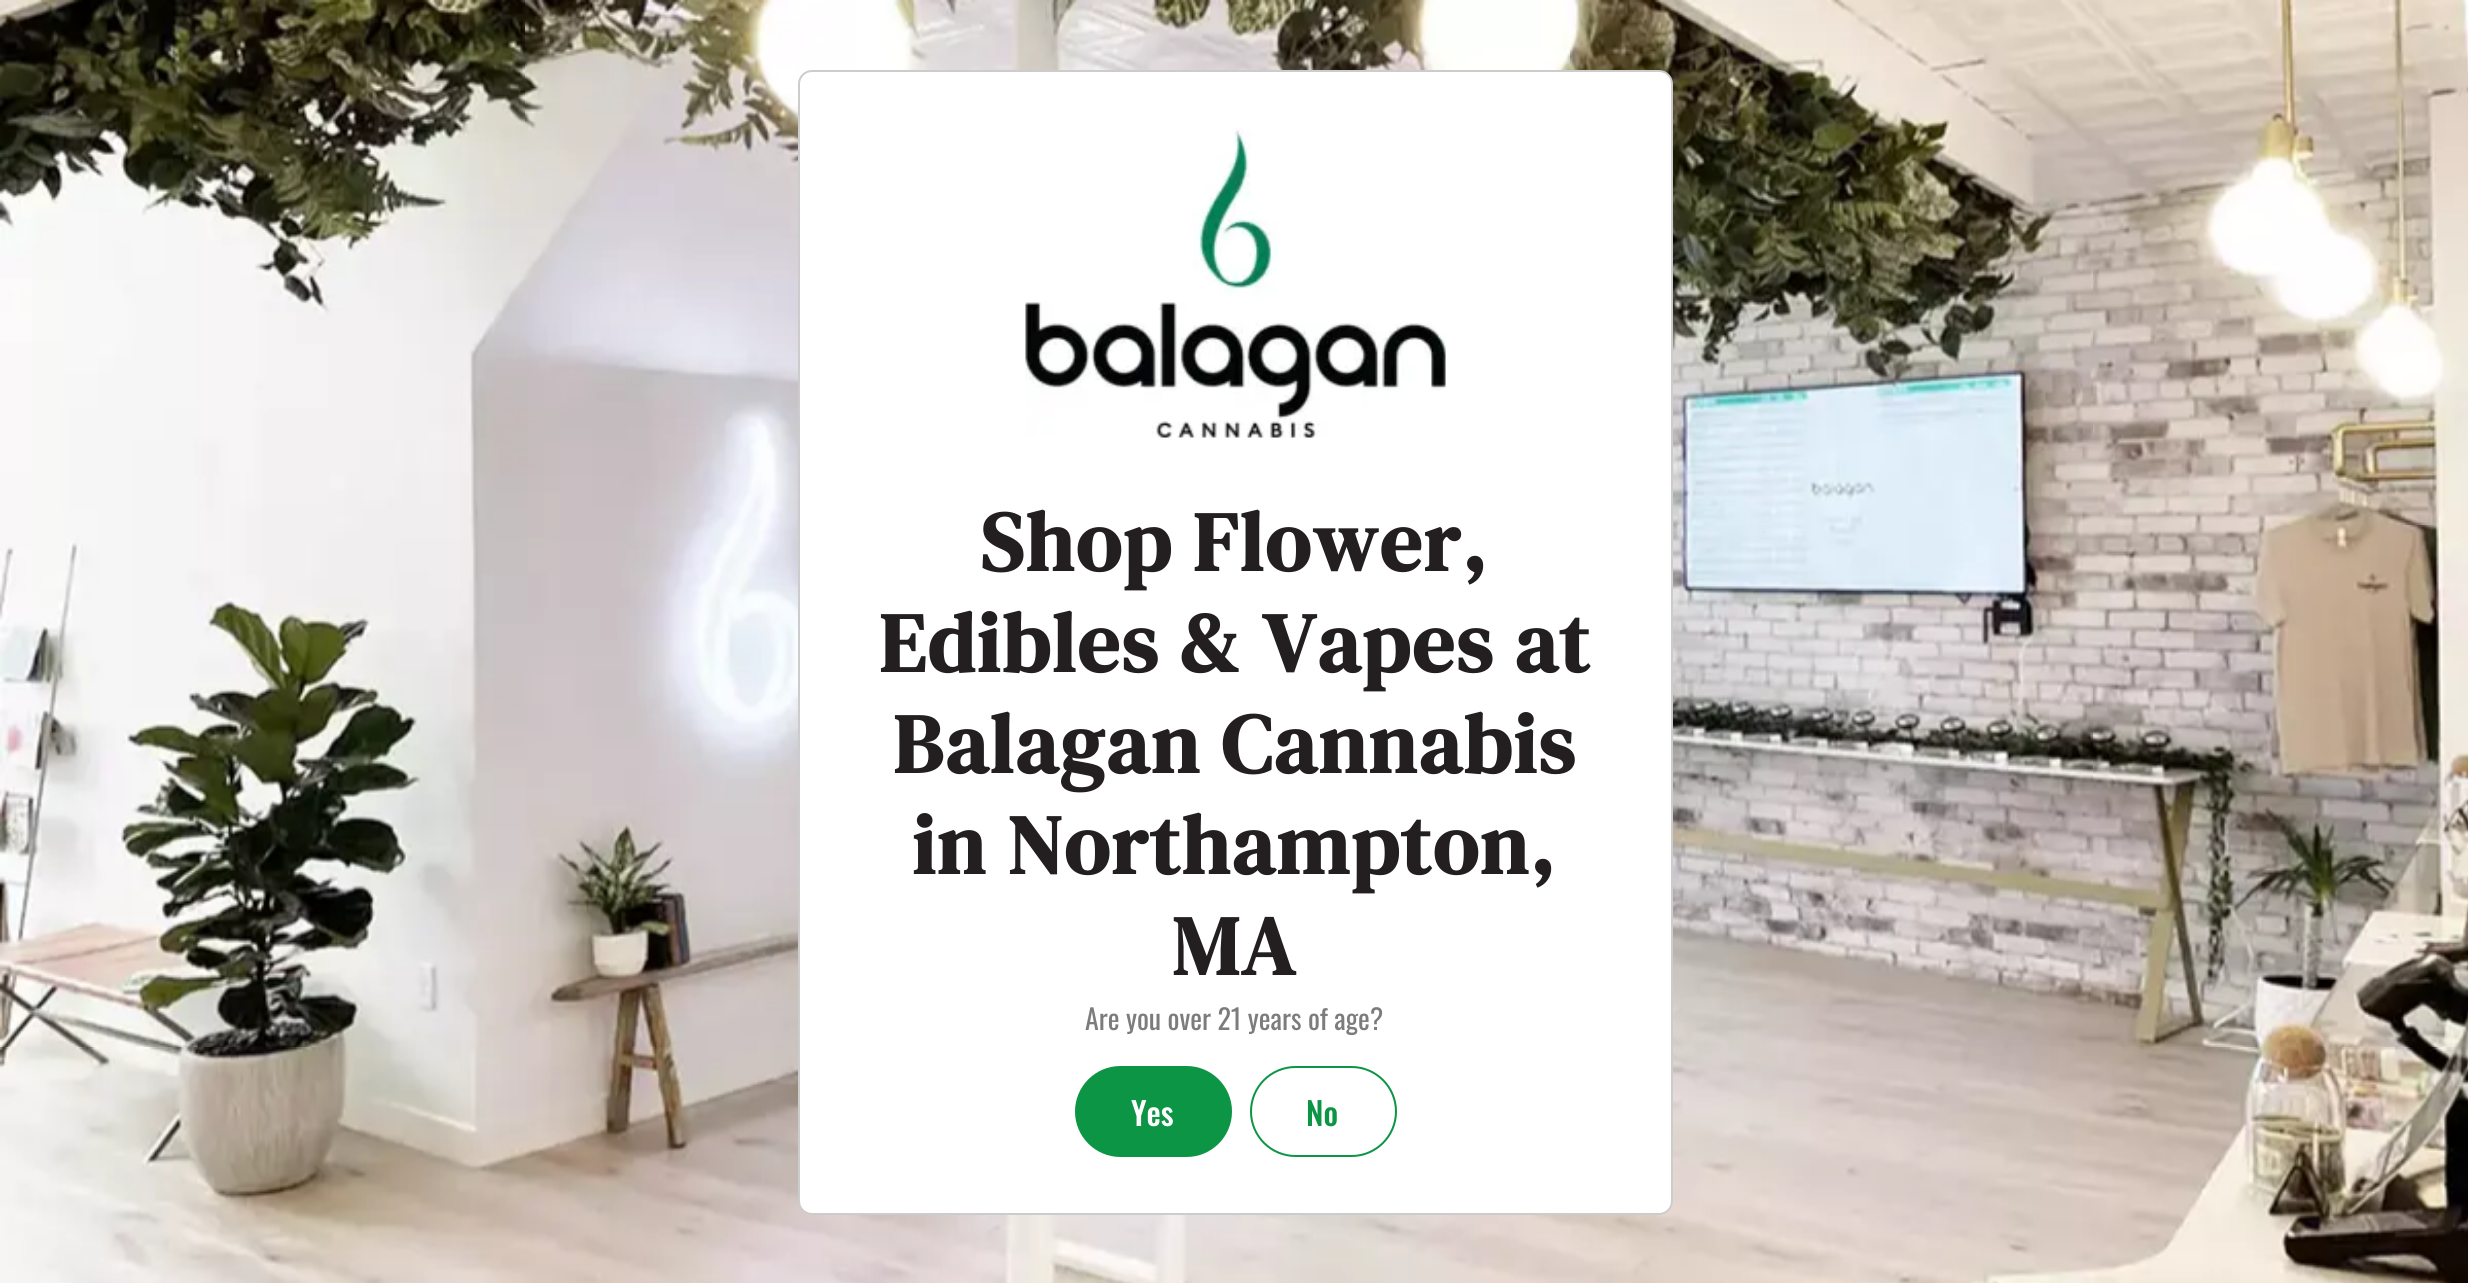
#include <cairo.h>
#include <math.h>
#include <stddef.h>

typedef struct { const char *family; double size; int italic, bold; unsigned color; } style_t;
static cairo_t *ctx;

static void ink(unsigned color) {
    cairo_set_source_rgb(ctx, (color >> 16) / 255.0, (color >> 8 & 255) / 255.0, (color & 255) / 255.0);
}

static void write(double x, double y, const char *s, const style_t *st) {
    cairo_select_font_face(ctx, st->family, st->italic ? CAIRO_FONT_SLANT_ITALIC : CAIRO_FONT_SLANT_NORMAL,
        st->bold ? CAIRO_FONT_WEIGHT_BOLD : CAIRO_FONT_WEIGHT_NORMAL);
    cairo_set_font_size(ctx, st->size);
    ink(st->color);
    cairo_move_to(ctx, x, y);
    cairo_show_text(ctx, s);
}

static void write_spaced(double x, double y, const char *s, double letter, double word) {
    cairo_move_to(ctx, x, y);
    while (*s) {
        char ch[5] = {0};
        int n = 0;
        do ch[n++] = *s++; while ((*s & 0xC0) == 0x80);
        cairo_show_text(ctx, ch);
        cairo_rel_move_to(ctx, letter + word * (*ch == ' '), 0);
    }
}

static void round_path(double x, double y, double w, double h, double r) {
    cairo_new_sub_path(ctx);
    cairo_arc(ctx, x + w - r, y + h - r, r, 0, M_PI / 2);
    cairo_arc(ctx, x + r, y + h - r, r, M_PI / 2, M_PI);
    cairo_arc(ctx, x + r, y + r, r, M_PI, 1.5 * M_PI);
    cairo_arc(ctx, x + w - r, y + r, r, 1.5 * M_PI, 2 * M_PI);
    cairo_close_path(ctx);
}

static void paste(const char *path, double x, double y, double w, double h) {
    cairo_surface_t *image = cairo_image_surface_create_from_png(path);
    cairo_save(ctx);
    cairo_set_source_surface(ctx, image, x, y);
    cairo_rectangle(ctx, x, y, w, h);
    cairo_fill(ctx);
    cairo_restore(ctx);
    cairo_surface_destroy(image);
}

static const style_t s1 = {"Oswald", 28, 0, 0, 0x7c7c7c};
static const style_t s2 = {"Oswald Medium", 32, 0, 0, 0xffffff};
static const style_t s3 = {"Oswald Medium", 32, 0, 0, 0x0b9544};

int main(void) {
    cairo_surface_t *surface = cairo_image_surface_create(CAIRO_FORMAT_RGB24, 2468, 1283);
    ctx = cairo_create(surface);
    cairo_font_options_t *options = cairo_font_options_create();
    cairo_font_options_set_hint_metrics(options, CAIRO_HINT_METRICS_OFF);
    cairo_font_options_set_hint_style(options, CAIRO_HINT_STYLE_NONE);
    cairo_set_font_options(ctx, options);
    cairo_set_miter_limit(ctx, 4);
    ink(0xffffff);
    cairo_paint(ctx);
    paste("pic1.png", 0, 0, 2468, 1283);
    ink(0xffffff);
    round_path(799, 71, 873, 1143, 13);
    cairo_fill_preserve(ctx);
    ink(0xcccccc);
    cairo_stroke(ctx);
    paste("pic2.png", 1025, 128, 421, 310);
    cairo_select_font_face(ctx, "DM Serif Text", CAIRO_FONT_SLANT_NORMAL, CAIRO_FONT_WEIGHT_BOLD);
    cairo_set_font_size(ctx, 84);
    ink(0x231f20);
    write_spaced(980, 571, "Shop Flower,", 1.75, 0);
    write_spaced(879, 672, "Edibles & Vapes at", 1.75, 0);
    write_spaced(893, 773, "Balagan Cannabis", 1.75, 0);
    write_spaced(912, 874, "in Northampton,", 1.75, 0);
    write_spaced(1172, 975, "MA", 1.75, 0);
    write(1085, 1030, "Are you over 21 years of age?", &s1);
    ink(0x0b9544);
    round_path(1076, 1067, 155, 89, 44.5);
    cairo_fill_preserve(ctx);
    cairo_stroke(ctx);
    write(1131, 1126, "Yes", &s2);
    round_path(1251, 1067, 145, 89, 44.5);
    ink(0x0b9544);
    cairo_stroke(ctx);
    write(1306, 1126, "No", &s3);
    cairo_surface_write_to_png(surface, "screenshot.png");
    cairo_font_options_destroy(options);
    cairo_destroy(ctx);
    cairo_surface_destroy(surface);
    return 0;
}
